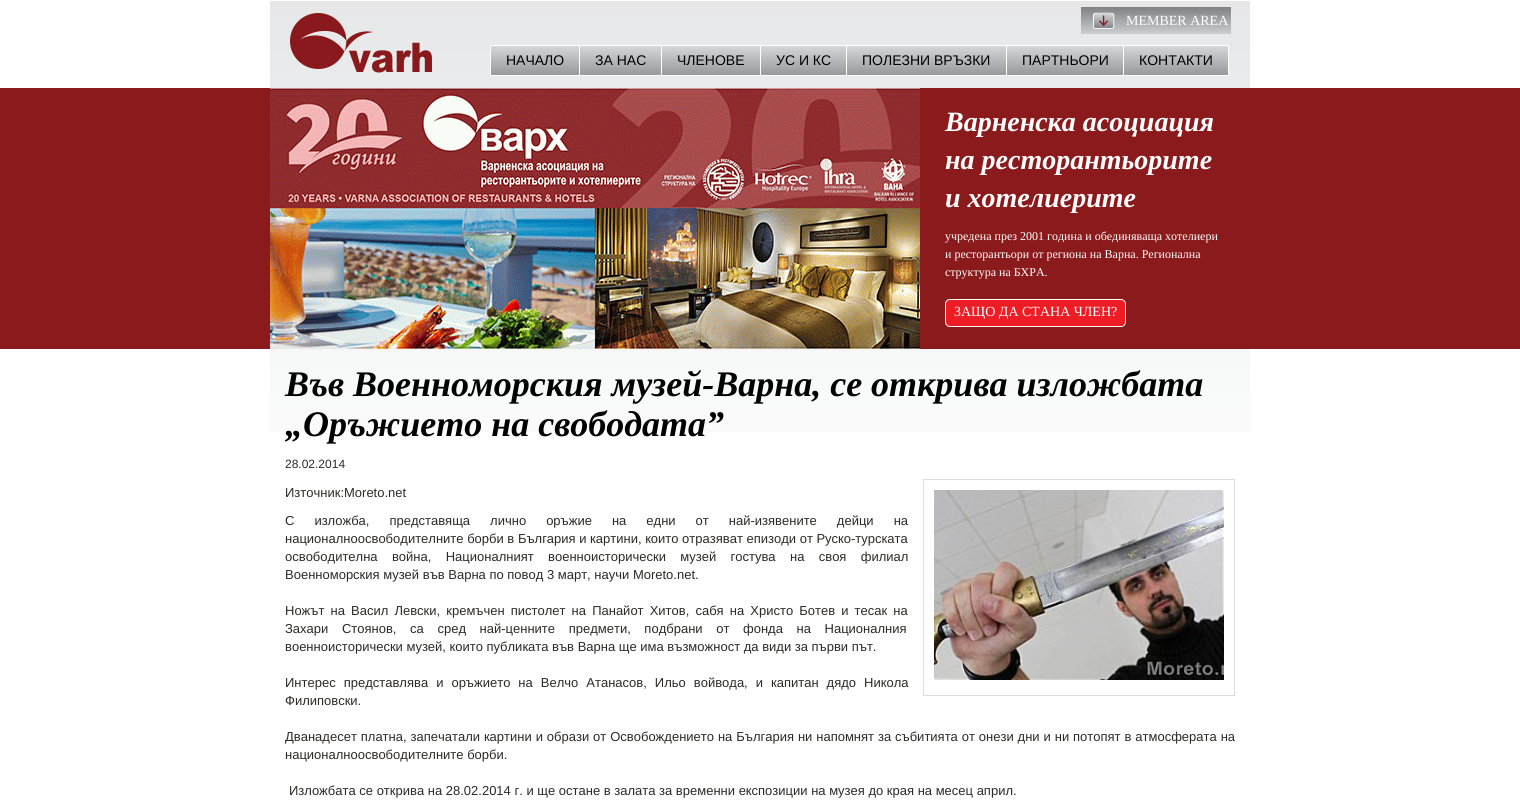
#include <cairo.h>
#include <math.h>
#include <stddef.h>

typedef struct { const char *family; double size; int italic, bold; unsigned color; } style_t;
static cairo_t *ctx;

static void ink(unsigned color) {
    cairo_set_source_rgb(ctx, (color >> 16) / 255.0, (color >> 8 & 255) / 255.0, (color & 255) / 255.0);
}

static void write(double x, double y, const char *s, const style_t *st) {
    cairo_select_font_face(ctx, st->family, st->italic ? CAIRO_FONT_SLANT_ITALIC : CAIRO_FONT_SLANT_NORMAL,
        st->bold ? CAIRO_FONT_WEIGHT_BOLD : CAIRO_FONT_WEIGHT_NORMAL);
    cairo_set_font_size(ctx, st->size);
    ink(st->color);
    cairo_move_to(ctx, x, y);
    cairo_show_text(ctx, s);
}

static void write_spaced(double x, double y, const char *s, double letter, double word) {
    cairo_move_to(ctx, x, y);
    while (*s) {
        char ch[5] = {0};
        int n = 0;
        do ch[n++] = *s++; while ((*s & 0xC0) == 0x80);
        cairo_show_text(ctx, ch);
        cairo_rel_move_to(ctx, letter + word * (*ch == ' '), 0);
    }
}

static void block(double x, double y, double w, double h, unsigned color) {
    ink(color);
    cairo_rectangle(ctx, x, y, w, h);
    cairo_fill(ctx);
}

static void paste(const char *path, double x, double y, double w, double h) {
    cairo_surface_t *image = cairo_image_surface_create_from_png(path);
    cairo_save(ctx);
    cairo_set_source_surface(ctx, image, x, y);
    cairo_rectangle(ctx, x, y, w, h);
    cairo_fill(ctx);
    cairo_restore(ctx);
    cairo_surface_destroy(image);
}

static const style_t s1 = {"Liberation Serif", 14, 0, 0, 0xffffff};
static const style_t s2 = {"Liberation Sans", 14, 0, 0, 0x000000};
static const style_t s3 = {"Liberation Serif", 28, 1, 1, 0xffffff};
static const style_t s4 = {"Liberation Serif", 12, 0, 0, 0xffffff};
static const style_t s5 = {"Liberation Serif", 36, 1, 1, 0x000000};
static const style_t s6 = {"Liberation Sans", 12, 0, 0, 0x2b2a28};
static const style_t s7 = {"Liberation Sans", 13, 0, 0, 0x2b2a28};

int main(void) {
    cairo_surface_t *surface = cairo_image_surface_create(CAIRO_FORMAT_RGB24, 1520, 807);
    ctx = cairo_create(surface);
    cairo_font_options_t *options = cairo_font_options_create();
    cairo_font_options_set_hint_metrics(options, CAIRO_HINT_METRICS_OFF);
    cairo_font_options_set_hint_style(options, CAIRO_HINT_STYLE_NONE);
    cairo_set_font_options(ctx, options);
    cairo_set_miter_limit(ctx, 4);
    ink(0xffffff);
    cairo_paint(ctx);
    block(0, 88, 1520, 261, 0x8b1a1c);
    paste("pic1.png", 270, 1, 980, 348);
    paste("pic2.png", 286, 8, 152, 71);
    paste("pic3.png", 1081, 7, 150, 27);
    write(1126, 25, "MEMBER AREA", &s1);
    paste("pic4.png", 491, 46, 88, 29);
    cairo_rectangle(ctx, 490.5, 45.5, 89, 30);
    cairo_set_line_width(ctx, 1);
    cairo_stroke(ctx);
    write(506, 65, "НАЧАЛО", &s2);
    paste("pic5.png", 580, 46, 81, 29);
    block(580, 45, 649, 1, 0xffffff);
    block(661, 45, 1, 31, 0xffffff);
    block(580, 75, 82, 1, 0xffffff);
    write(595, 65, "ЗА НАС", &s2);
    paste("pic6.png", 662, 46, 98, 29);
    block(760, 45, 1, 31, 0xffffff);
    block(662, 75, 99, 1, 0xffffff);
    write(677, 65, "ЧЛЕНОВЕ", &s2);
    paste("pic7.png", 761, 46, 85, 29);
    block(846, 45, 1, 31, 0xffffff);
    block(761, 75, 86, 1, 0xffffff);
    write(776, 65, "УС И КС", &s2);
    paste("pic8.png", 847, 46, 159, 29);
    block(1006, 45, 1, 31, 0xffffff);
    block(847, 75, 160, 1, 0xffffff);
    write(862, 65, "ПОЛЕЗНИ ВРЪЗКИ", &s2);
    paste("pic9.png", 1007, 46, 116, 29);
    block(1123, 45, 1, 31, 0xffffff);
    block(1007, 75, 117, 1, 0xffffff);
    write(1022, 65, "ПАРТНЬОРИ", &s2);
    paste("pic10.png", 1124, 46, 104, 29);
    block(1228, 45, 1, 31, 0xffffff);
    block(1124, 75, 105, 1, 0xffffff);
    write(1139, 65, "КОНТАКТИ", &s2);
    paste("pic11.png", 270, 88, 650, 261);
    write(945, 131, "Варненска асоциация", &s3);
    write(945, 169, "на ресторантьорите", &s3);
    write(945, 207, "и хотелиерите", &s3);
    write(945, 240, "учредена през 2001 година и обединяваща хотелиери", &s4);
    write(945, 258, "и ресторантьори от региона на Варна. Регионална", &s4);
    write(945, 276, "структура на БХРА.", &s4);
    paste("pic12.png", 945, 299, 181, 28);
    write(954, 316, "ЗАЩО ДА СТАНА ЧЛЕН?", &s1);
    paste("pic13.png", 270, 349, 980, 83);
    write(285, 396, "Във Военноморския музей-Варна, се открива изложбата", &s5);
    write(285, 436, "„Оръжието на свободата”", &s5);
    write(285, 468, "28.02.2014", &s6);
    write(285, 497, "Източник:Moreto.net", &s7);
    cairo_rectangle(ctx, 923.5, 479.5, 311, 216);
    ink(0xdddddd);
    cairo_stroke(ctx);
    paste("pic14.png", 934, 490, 290, 190);
    ink(0x2b2a28);
    write_spaced(285, 525, "С изложба, представяща лично оръжие на едни от най-изявените дейци на", 0, 16.4);
    write(285, 543, "националноосвободителните борби в България и картини, които отразяват епизоди от Руско-турската", &s7);
    write_spaced(285, 561, "освободителна война, Националният военноисторически музей гостува на своя филиал", 0, 10.75);
    write(285, 579, "Военноморския музей във Варна по повод 3 март, научи Moreto.net.", &s7);
    write_spaced(285, 615, "Ножът на Васил Левски, кремъчен пистолет на Панайот Хитов, сабя на Христо Ботев и тесак на", 0, 2.5);
    write_spaced(285, 633, "Захари Стоянов, са сред най-ценните предмети, подбрани от фонда на Националния", 0, 10);
    write(285, 651, "военноисторически музей, които публиката във Варна ще има възможност да види за първи път.", &s7);
    write_spaced(285, 687, "Интерес представлява и оръжието на Велчо Атанасов, Ильо войвода, и капитан дядо Никола", 0, 4.4);
    write(285, 705, "Филиповски.", &s7);
    write_spaced(285, 741, "Дванадесет платна, запечатали картини и образи от Освобождението на България ни напомнят за събитията от онези дни и ни потопят в атмосферата на", 0, 0.3);
    write(285, 759, "националноосвободителните борби.", &s7);
    write(289, 795, "Изложбата се открива на 28.02.2014 г. и ще остане в залата за временни експозиции на музея до края на месец април.", &s7);
    cairo_surface_write_to_png(surface, "screenshot.png");
    cairo_font_options_destroy(options);
    cairo_destroy(ctx);
    cairo_surface_destroy(surface);
    return 0;
}
